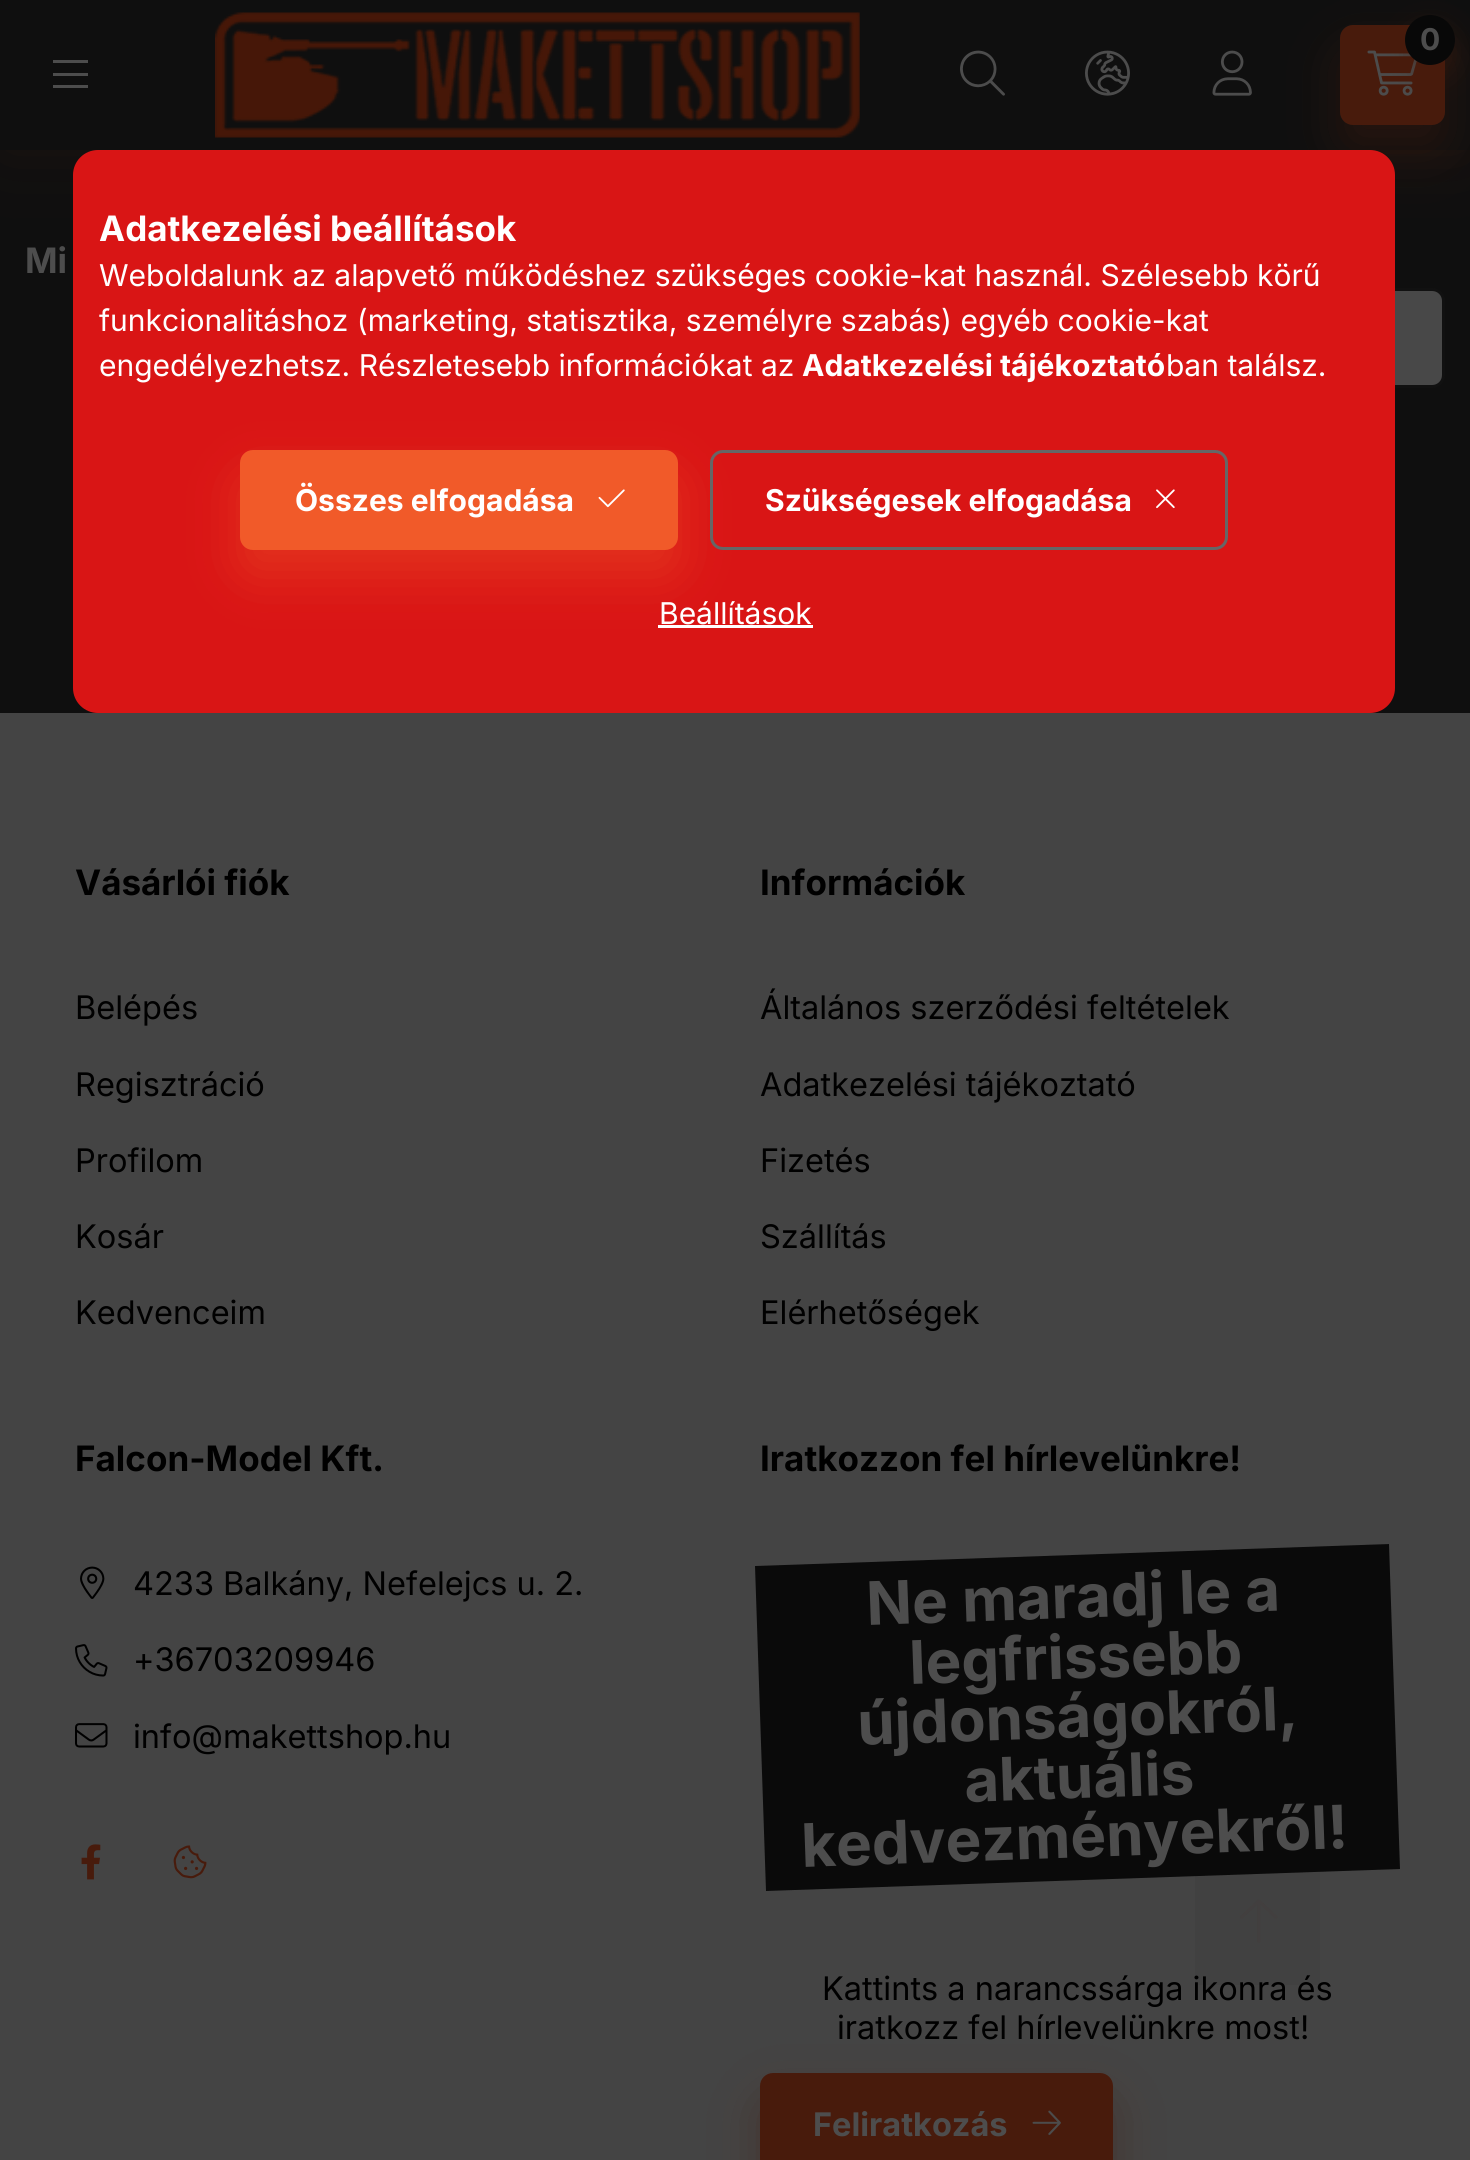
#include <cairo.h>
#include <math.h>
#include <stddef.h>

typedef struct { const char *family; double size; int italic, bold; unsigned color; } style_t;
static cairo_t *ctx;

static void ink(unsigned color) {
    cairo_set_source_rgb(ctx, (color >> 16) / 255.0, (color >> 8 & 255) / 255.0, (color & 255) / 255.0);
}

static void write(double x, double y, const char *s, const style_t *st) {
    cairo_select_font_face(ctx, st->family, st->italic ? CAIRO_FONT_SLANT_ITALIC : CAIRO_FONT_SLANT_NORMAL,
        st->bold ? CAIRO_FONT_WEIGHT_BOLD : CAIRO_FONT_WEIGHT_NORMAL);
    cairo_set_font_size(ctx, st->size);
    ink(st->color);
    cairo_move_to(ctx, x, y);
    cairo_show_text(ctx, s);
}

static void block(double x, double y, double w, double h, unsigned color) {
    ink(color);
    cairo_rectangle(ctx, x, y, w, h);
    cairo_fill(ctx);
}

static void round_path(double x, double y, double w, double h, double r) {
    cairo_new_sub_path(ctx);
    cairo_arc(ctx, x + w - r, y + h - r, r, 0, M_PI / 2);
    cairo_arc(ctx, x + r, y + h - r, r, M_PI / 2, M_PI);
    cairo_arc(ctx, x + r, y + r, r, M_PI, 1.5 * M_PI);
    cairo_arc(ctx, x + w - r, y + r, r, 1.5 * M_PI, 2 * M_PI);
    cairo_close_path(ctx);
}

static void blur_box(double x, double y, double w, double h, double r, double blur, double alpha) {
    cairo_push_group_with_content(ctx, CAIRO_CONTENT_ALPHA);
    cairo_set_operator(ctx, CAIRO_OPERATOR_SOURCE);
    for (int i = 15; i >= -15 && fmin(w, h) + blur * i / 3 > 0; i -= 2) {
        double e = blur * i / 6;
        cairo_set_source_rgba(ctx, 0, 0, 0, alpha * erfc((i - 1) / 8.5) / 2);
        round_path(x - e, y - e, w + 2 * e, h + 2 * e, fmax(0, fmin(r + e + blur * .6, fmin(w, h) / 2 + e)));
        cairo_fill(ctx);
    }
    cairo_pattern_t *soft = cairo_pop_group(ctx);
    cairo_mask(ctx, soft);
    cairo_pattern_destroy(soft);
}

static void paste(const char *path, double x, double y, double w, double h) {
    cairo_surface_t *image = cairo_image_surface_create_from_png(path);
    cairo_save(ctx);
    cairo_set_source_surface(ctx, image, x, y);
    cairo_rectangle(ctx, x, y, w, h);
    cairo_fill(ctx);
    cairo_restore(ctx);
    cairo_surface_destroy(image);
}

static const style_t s1 = {"Inter", 30, 0, 1, 0x4d4d4d};
static const style_t s2 = {"Inter", 35, 0, 1, 0x4d4d4d};
static const style_t s3 = {"Inter", 35, 0, 1, 0x000000};
static const style_t s4 = {"Inter", 32.5, 0, 0, 0x000000};
static const style_t s5 = {"Inter", 60, 0, 1, 0x4d4d4d};
static const style_t s6 = {"Inter", 32.5, 0, 1, 0x4d4d4d};
static const style_t s7 = {"Inter", 35, 0, 1, 0xffffff};
static const style_t s8 = {"Inter", 30, 0, 0, 0xffffff};
static const style_t s9 = {"Inter", 30, 0, 1, 0xffffff};

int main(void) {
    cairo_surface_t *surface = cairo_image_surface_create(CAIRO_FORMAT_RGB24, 1470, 2160);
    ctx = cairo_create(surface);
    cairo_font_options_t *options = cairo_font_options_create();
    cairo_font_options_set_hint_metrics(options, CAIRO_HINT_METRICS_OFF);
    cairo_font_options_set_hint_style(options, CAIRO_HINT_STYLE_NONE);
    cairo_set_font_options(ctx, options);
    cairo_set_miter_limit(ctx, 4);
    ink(0x0f0f0f);
    cairo_paint(ctx);
    ink(0x481b0c);
    blur_box(0, 0, 1470, 150, 0, 37.5, 0.2);
    block(0, 0, 1470, 150, 0x0f0f0f);
    block(53, 60, 35, 3, 0x4d4d4d);
    block(53, 73, 35, 3, 0x4d4d4d);
    block(53, 85, 35, 3, 0x4d4d4d);
    paste("pic1.png", 215, 12, 645, 126);
    ink(0x481b0c);
    blur_box(1340, 50, 105, 100, 13, 25, 0.4);
    ink(0x481b0c);
    round_path(1340, 25, 105, 100, 13);
    cairo_fill(ctx);
    paste("pic2.png", 1367, 50, 50, 46);
    ink(0x481b0c);
    blur_box(1405, 28, 50, 50, 25, 12.5, 0.4);
    ink(0x080808);
    cairo_arc(ctx, 1430, 40, 25, 0, 2 * M_PI);
    cairo_fill(ctx);
    write(1420, 50, "0", &s1);
    paste("pic3.png", 960, 50, 45, 46);
    paste("pic4.png", 1085, 50, 45, 46);
    paste("pic5.png", 1212, 50, 40, 46);
    write(25, 273, "Mi", &s2);
    ink(0x484848);
    cairo_new_path(ctx);
    cairo_move_to(ctx, 1309.5, 289.5);
    cairo_line_to(ctx, 1432, 289.5);
    cairo_curve_to(ctx, 1438.5, 289.5, 1443.5, 294.5, 1443.5, 301);
    cairo_line_to(ctx, 1443.5, 375);
    cairo_curve_to(ctx, 1443.5, 381.5, 1438.5, 386.5, 1432, 386.5);
    cairo_line_to(ctx, 1309.5, 386.5);
    cairo_close_path(ctx);
    cairo_fill_preserve(ctx);
    ink(0x111111);
    cairo_set_line_width(ctx, 3);
    cairo_stroke(ctx);
    block(0, 713, 1470, 1447, 0x444444);
    write(75, 895, "Vásárlói fiók", &s3);
    write(75, 1019, "Belépés", &s4);
    write(75, 1096, "Regisztráció", &s4);
    write(75, 1172, "Profilom", &s4);
    write(75, 1248, "Kosár", &s4);
    write(75, 1324, "Kedvenceim", &s4);
    write(760, 895, "Információk", &s3);
    write(760, 1019, "Általános szerződési feltételek", &s4);
    write(760, 1096, "Adatkezelési tájékoztató", &s4);
    write(760, 1172, "Fizetés", &s4);
    write(760, 1248, "Szállítás", &s4);
    write(760, 1324, "Elérhetőségek", &s4);
    write(75, 1471, "Falcon-Model Kft.", &s3);
    paste("pic6.png", 80, 1566, 25, 33);
    write(133, 1595, "4233 Balkány, Nefelejcs u. 2.", &s4);
    paste("pic7.png", 75, 1644, 33, 33);
    write(133, 1671, "+36703209946", &s4);
    paste("pic8.png", 75, 1723, 33, 25);
    write(133, 1748, "info@makettshop.hu", &s4);
    paste("pic9.png", 81, 1844, 20, 36);
    paste("pic10.png", 173, 1845, 34, 34);
    write(760, 1471, "Iratkozzon fel hírlevelünkre!", &s3);
    ink(0x0a0a0a);
    cairo_new_path(ctx);
    cairo_move_to(ctx, 755, 1566);
    cairo_line_to(ctx, 1389, 1544);
    cairo_line_to(ctx, 1400, 1869);
    cairo_line_to(ctx, 766, 1891);
    cairo_close_path(ctx);
    cairo_fill(ctx);
    cairo_save(ctx);
    cairo_translate(ctx, 867, 1625);
    cairo_rotate(ctx, -2 * M_PI / 180);
    write(0, 0, "Ne maradj le a", &s5);
    cairo_restore(ctx);
    cairo_save(ctx);
    cairo_translate(ctx, 910, 1684);
    cairo_rotate(ctx, -2 * M_PI / 180);
    write(0, 0, "legfrissebb", &s5);
    cairo_restore(ctx);
    cairo_save(ctx);
    cairo_translate(ctx, 858, 1745);
    cairo_rotate(ctx, -2 * M_PI / 180);
    write(0, 0, "újdonságokról,", &s5);
    cairo_restore(ctx);
    cairo_save(ctx);
    cairo_translate(ctx, 965, 1802);
    cairo_rotate(ctx, -2 * M_PI / 180);
    write(0, 0, "aktuális", &s5);
    cairo_restore(ctx);
    cairo_save(ctx);
    cairo_translate(ctx, 802, 1867);
    cairo_rotate(ctx, -2 * M_PI / 180);
    write(0, 0, "kedvezményekről!", &s5);
    cairo_restore(ctx);
    write(822, 2000, "Kattints a narancssárga ikonra és", &s4);
    write(837, 2039, "iratkozz fel hírlevelünkre most!", &s4);
    ink(0x481b0c);
    blur_box(760, 2098, 353, 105, 13, 25, 0.4);
    ink(0x481b0c);
    round_path(761.5, 2074.5, 350, 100, 11.5);
    cairo_fill_preserve(ctx);
    cairo_stroke(ctx);
    write(813, 2136, "Feliratkozás", &s6);
    paste("pic11.png", 1032, 2110, 29, 25);
    ink(0xd91515);
    round_path(73, 150, 1322, 563, 25);
    cairo_fill(ctx);
    write(99, 241, "Adatkezelési beállítások", &s7);
    write(99, 286, "Weboldalunk az alapvető működéshez szükséges cookie-kat használ. Szélesebb körű", &s8);
    write(99, 331, "funkcionalitáshoz (marketing, statisztika, személyre szabás) egyéb cookie-kat", &s8);
    write(99, 376, "engedélyezhetsz. Részletesebb információkat az", &s8);
    write(802, 376, "Adatkezelési tájékoztató", &s9);
    write(1166, 376, "ban találsz.", &s8);
    ink(0xf15a29);
    blur_box(240, 475, 438, 100, 13, 25, 0.4);
    ink(0xf15a29);
    round_path(241.5, 451.5, 435, 97, 11.5);
    cairo_fill_preserve(ctx);
    cairo_stroke(ctx);
    write(295, 511, "Összes elfogadása", &s9);
    paste("pic12.png", 598, 489, 27, 19);
    round_path(711.5, 451.5, 515, 97, 11.5);
    ink(0x666666);
    cairo_stroke(ctx);
    write(765, 511, "Szükségesek elfogadása", &s9);
    paste("pic13.png", 1156, 489, 19, 20);
    write(659, 624, "Beállítások", &s8);
    block(658, 625, 155, 3, 0xffffff);
    cairo_set_source_rgba(ctx, 0.031, 0.031, 0.031, 0.05);
    cairo_rectangle(ctx, 1195, 1872, 125, 113);
    cairo_fill(ctx);
    paste("pic14.png", 1240, 1899, 38, 44);
    cairo_surface_write_to_png(surface, "screenshot.png");
    cairo_font_options_destroy(options);
    cairo_destroy(ctx);
    cairo_surface_destroy(surface);
    return 0;
}
